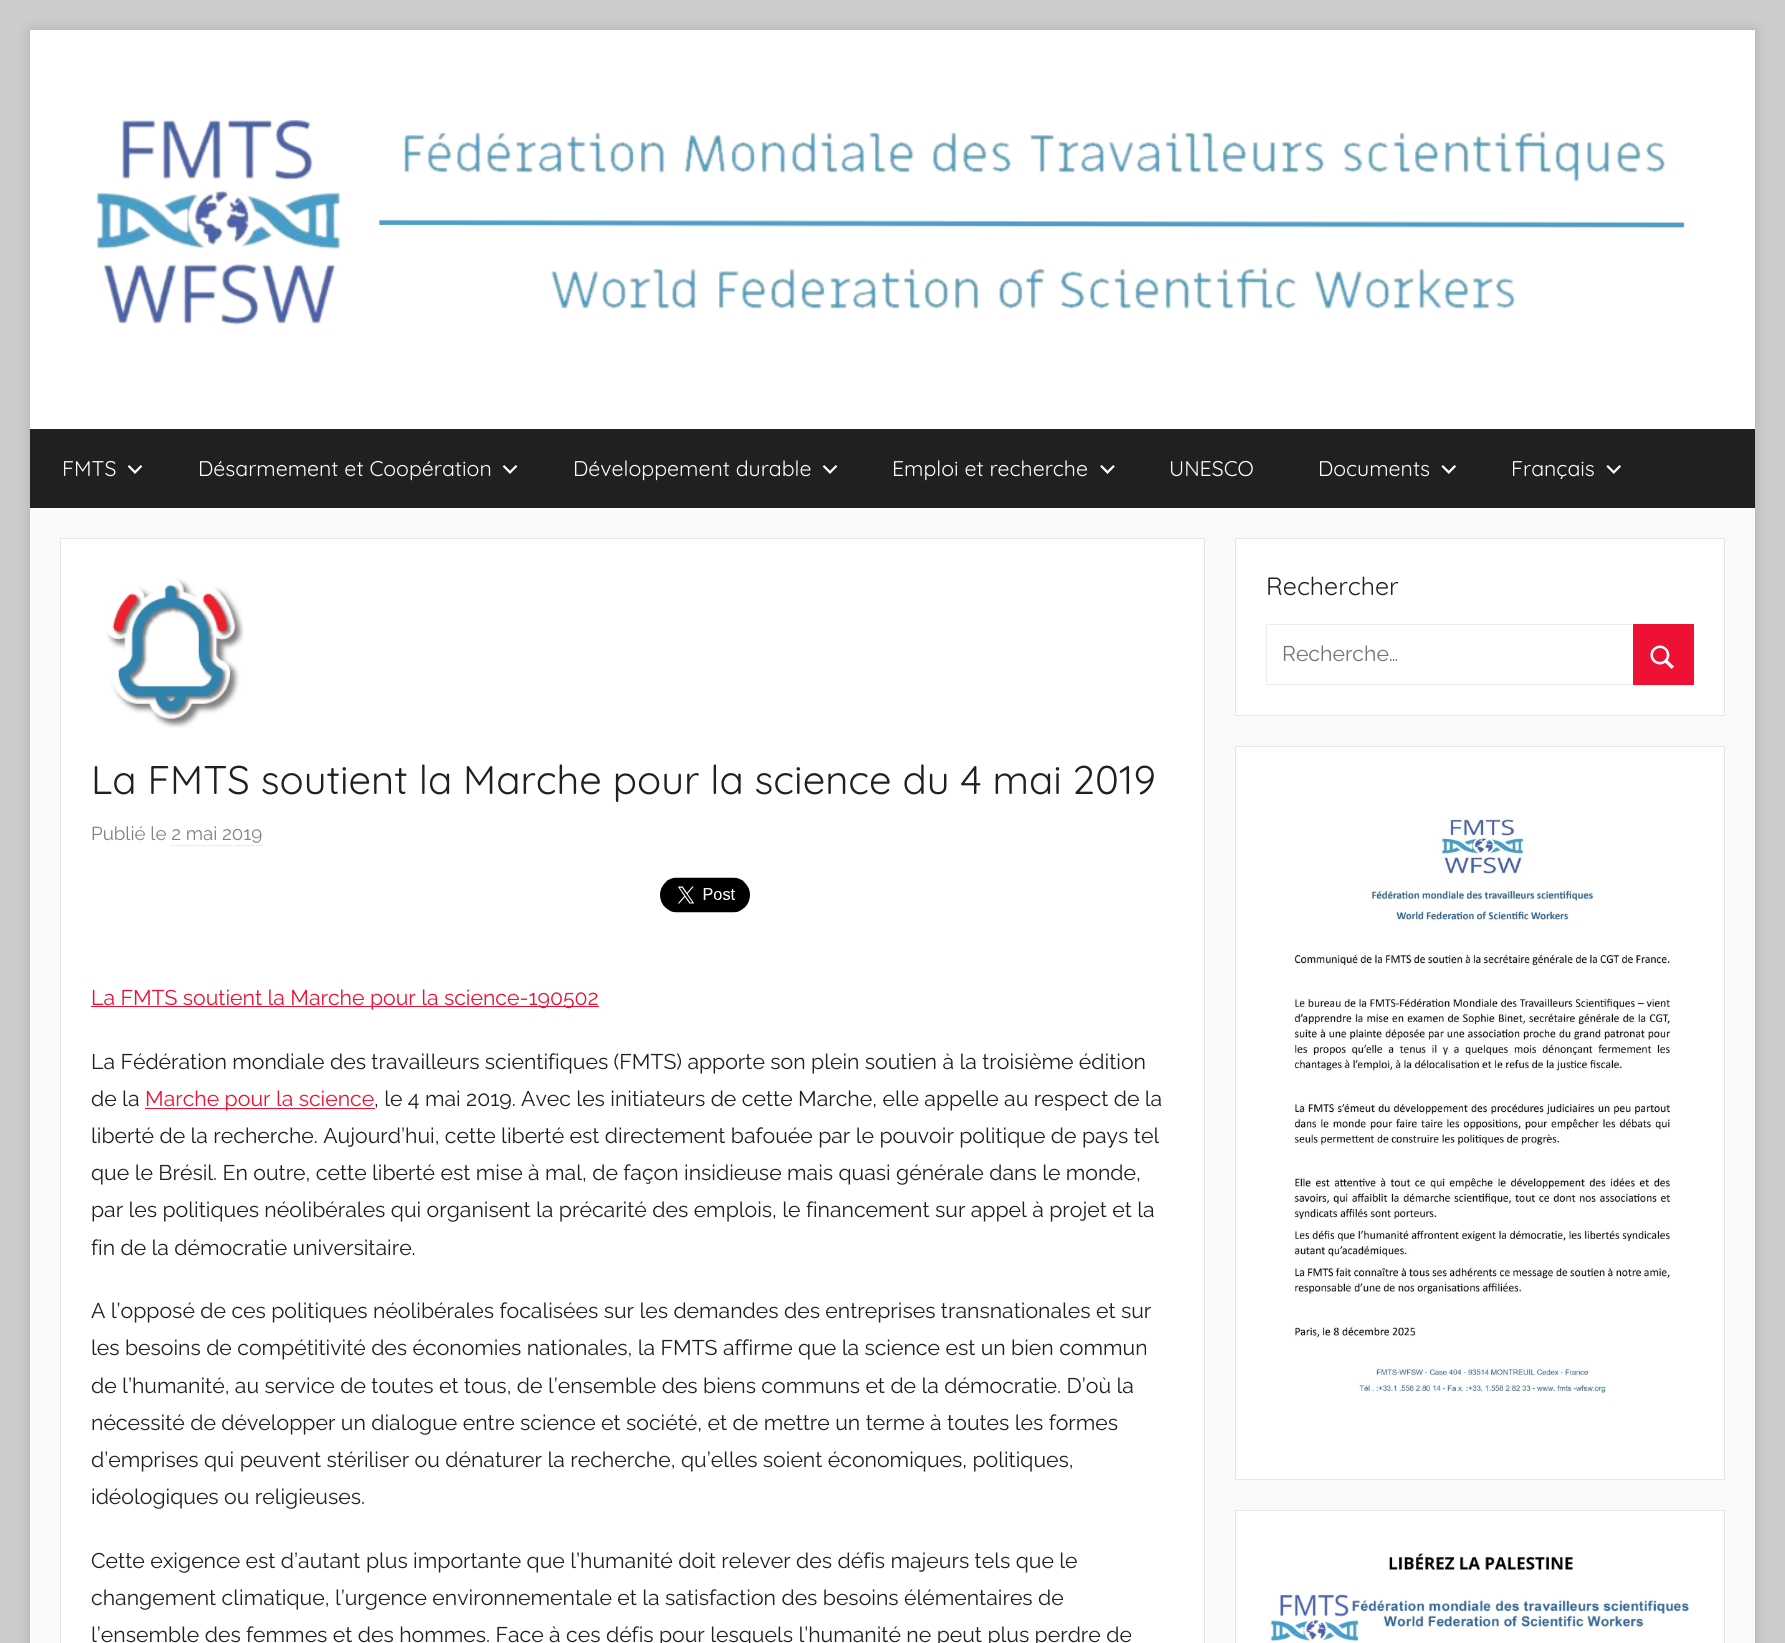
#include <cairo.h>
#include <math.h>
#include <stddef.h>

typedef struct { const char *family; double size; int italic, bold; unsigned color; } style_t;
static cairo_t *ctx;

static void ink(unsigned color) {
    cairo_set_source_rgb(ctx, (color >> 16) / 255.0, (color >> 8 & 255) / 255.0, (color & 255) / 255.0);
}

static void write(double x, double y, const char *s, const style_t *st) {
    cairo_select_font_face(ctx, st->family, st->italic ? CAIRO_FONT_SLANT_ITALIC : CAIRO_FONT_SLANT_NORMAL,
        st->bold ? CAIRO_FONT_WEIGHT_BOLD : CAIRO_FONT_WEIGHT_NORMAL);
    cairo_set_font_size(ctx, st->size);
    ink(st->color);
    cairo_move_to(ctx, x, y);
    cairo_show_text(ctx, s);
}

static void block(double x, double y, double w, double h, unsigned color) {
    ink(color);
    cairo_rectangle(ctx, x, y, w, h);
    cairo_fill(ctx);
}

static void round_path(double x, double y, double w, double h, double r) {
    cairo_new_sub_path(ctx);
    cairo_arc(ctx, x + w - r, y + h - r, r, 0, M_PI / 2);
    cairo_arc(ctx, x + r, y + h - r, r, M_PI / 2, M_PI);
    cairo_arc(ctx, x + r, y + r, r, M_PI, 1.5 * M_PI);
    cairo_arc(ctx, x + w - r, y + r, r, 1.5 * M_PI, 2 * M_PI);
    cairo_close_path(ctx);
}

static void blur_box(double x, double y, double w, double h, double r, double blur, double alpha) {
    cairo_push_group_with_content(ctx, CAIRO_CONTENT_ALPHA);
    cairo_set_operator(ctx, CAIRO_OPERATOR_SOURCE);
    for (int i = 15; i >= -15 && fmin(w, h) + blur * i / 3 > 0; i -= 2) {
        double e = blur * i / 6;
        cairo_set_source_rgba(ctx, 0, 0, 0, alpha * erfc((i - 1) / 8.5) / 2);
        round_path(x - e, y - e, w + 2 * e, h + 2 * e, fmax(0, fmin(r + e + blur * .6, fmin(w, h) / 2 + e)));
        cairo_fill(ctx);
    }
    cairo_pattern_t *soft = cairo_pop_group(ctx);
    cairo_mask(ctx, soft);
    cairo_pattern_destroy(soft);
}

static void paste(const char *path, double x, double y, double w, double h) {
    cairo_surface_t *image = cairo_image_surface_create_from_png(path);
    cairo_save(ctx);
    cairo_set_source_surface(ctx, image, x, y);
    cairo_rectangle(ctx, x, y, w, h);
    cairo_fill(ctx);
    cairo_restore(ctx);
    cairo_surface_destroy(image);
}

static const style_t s1 = {"Quicksand", 21.25, 0, 0, 0xffffff};
static const style_t s2 = {"Quicksand", 25, 0, 0, 0x202020};
static const style_t s3 = {"Raleway", 21.25, 0, 0, 0x757575};
static const style_t s4 = {"Quicksand", 40, 0, 0, 0x202020};
static const style_t s5 = {"Raleway", 18.75, 0, 0, 0x808080};
static const style_t s6 = {"Raleway", 21.25, 0, 0, 0xee1133};
static const style_t s7 = {"Raleway", 21.25, 0, 0, 0x202020};

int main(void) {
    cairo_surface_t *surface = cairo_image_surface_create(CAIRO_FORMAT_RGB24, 1785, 1643);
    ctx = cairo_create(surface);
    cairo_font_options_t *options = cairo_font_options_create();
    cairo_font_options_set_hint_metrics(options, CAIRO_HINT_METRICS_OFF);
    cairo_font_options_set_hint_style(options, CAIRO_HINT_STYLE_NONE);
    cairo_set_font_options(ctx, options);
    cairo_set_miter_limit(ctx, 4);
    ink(0xcccccc);
    cairo_paint(ctx);
    ink(0x000000);
    blur_box(30, 30, 1725, 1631, 0, 6, 0.15);
    block(30, 508, 1725, 1135, 0xfafafa);
    block(30, 30, 1725, 399, 0xffffff);
    paste("pic1.png", 96, 119, 1589, 206);
    block(30, 429, 1725, 79, 0x202020);
    write(62, 476, "FMTS", &s1);
    paste("pic2.png", 127, 465, 16, 9);
    write(198, 476, "Désarmement et Coopération", &s1);
    paste("pic3.png", 502, 465, 16, 9);
    write(573, 476, "Développement durable", &s1);
    paste("pic2.png", 822, 465, 16, 9);
    write(892, 476, "Emploi et recherche", &s1);
    paste("pic4.png", 1100, 465, 15, 9);
    write(1169, 476, "UNESCO", &s1);
    write(1318, 476, "Documents", &s1);
    paste("pic5.png", 1441, 465, 15, 9);
    write(1511, 476, "Français", &s1);
    paste("pic5.png", 1606, 465, 15, 9);
    cairo_rectangle(ctx, 1235.5, 538.5, 489, 177);
    cairo_fill_preserve(ctx);
    ink(0xe6e6e6);
    cairo_set_line_width(ctx, 1);
    cairo_stroke(ctx);
    write(1266, 595, "Rechercher", &s2);
    cairo_rectangle(ctx, 1266.5, 624.5, 427, 60);
    ink(0xececec);
    cairo_stroke(ctx);
    write(1282, 661, "Recherche…", &s3);
    block(1633, 624, 61, 61, 0xee1133);
    paste("pic6.png", 1650, 645, 24, 24);
    ink(0xffffff);
    cairo_rectangle(ctx, 1235.5, 746.5, 489, 733);
    cairo_fill_preserve(ctx);
    ink(0xe6e6e6);
    cairo_stroke(ctx);
    paste("pic7.png", 1294, 817, 376, 577);
    ink(0xffffff);
    cairo_rectangle(ctx, 1235.5, 1510.5, 489, 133);
    cairo_fill_preserve(ctx);
    ink(0xe6e6e6);
    cairo_stroke(ctx);
    paste("pic8.png", 1270, 1553, 420, 89);
    ink(0xffffff);
    cairo_rectangle(ctx, 60.5, 538.5, 1144, 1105);
    cairo_fill_preserve(ctx);
    ink(0xe6e6e6);
    cairo_stroke(ctx);
    paste("pic9.png", 106, 577, 138, 151);
    write(91, 794, "La FMTS soutient la Marche pour la science du 4 mai 2019", &s4);
    write(91, 840, "Publié le 2 mai 2019", &s5);
    cairo_new_path(ctx);
    cairo_move_to(ctx, 171, 845.5);
    cairo_line_to(ctx, 262.5, 845.5);
    ink(0xd9d9d9);
    cairo_set_line_width(ctx, 1.2);
    cairo_set_dash(ctx, (double[]){1.25, 1.25}, 2, 0);
    cairo_stroke(ctx);
    paste("pic10.png", 660, 877, 90, 36);
    block(91, 1006, 508, 1, 0xee1133);
    write(91, 1005, "La FMTS soutient la Marche pour la science-190502", &s6);
    write(91, 1069, "La Fédération mondiale des travailleurs scientifiques (FMTS) apporte son plein soutien à la troisième édition", &s7);
    write(91, 1106, "de la", &s7);
    block(145, 1108, 230, 1, 0xee1133);
    write(145, 1106, "Marche pour la science", &s6);
    write(374, 1106, ", le 4 mai 2019. Avec les initiateurs de cette Marche, elle appelle au respect de la", &s7);
    write(91, 1143, "liberté de la recherche. Aujourd’hui, cette liberté est directement bafouée par le pouvoir politique de pays tel", &s7);
    write(91, 1180, "que le Brésil. En outre, cette liberté est mise à mal, de façon insidieuse mais quasi générale dans le monde,", &s7);
    write(91, 1217, "par les politiques néolibérales qui organisent la précarité des emplois, le financement sur appel à projet et la", &s7);
    write(91, 1255, "fin de la démocratie universitaire.", &s7);
    write(91, 1318, "A l’opposé de ces politiques néolibérales focalisées sur les demandes des entreprises transnationales et sur", &s7);
    write(91, 1355, "les besoins de compétitivité des économies nationales, la FMTS affirme que la science est un bien commun", &s7);
    write(91, 1393, "de l’humanité, au service de toutes et tous, de l’ensemble des biens communs et de la démocratie. D’où la", &s7);
    write(91, 1430, "nécessité de développer un dialogue entre science et société, et de mettre un terme à toutes les formes", &s7);
    write(91, 1467, "d’emprises qui peuvent stériliser ou dénaturer la recherche, qu’elles soient économiques, politiques,", &s7);
    write(91, 1504, "idéologiques ou religieuses.", &s7);
    write(91, 1568, "Cette exigence est d’autant plus importante que l’humanité doit relever des défis majeurs tels que le", &s7);
    write(91, 1605, "changement climatique, l’urgence environnementale et la satisfaction des besoins élémentaires de", &s7);
    write(91, 1642, "l’ensemble des femmes et des hommes. Face à ces défis pour lesquels l’humanité ne peut plus perdre de", &s7);
    cairo_surface_write_to_png(surface, "screenshot.png");
    cairo_font_options_destroy(options);
    cairo_destroy(ctx);
    cairo_surface_destroy(surface);
    return 0;
}
